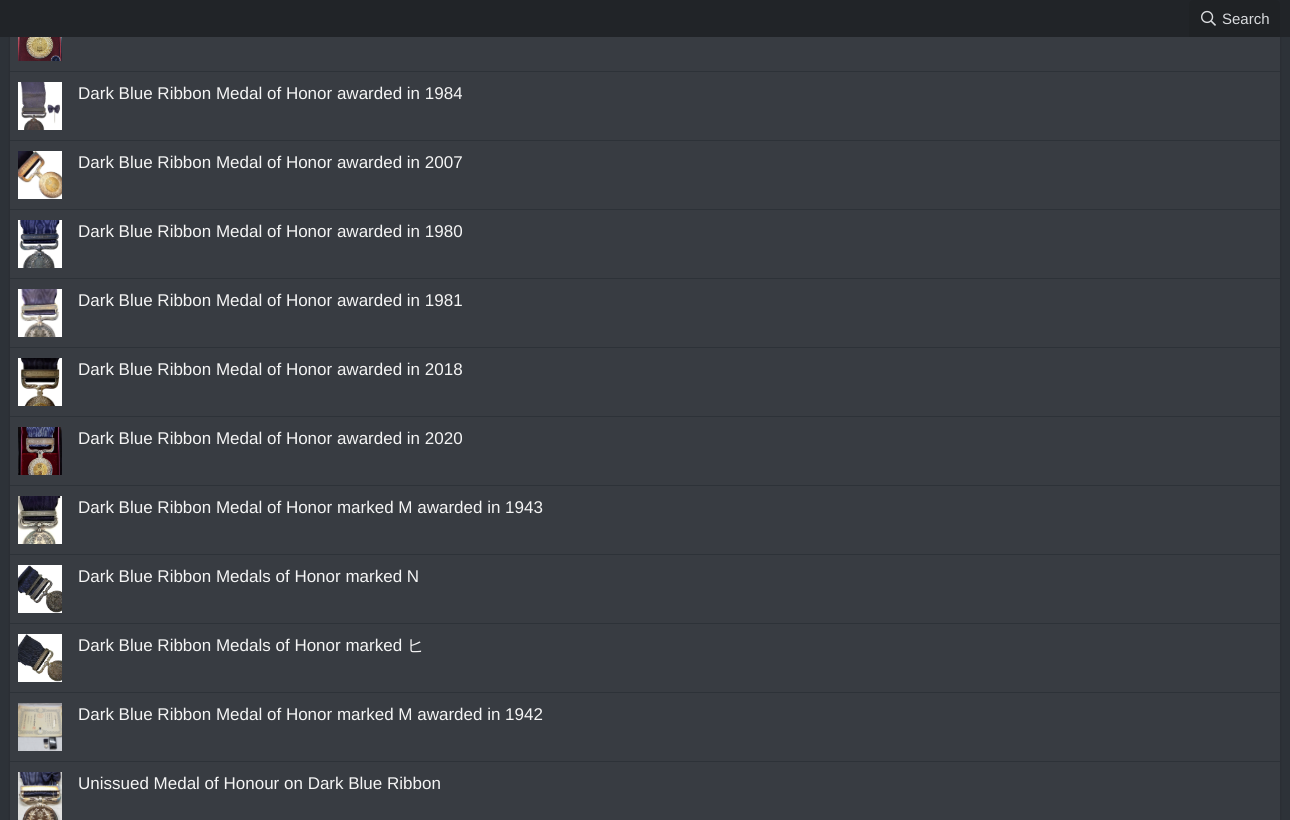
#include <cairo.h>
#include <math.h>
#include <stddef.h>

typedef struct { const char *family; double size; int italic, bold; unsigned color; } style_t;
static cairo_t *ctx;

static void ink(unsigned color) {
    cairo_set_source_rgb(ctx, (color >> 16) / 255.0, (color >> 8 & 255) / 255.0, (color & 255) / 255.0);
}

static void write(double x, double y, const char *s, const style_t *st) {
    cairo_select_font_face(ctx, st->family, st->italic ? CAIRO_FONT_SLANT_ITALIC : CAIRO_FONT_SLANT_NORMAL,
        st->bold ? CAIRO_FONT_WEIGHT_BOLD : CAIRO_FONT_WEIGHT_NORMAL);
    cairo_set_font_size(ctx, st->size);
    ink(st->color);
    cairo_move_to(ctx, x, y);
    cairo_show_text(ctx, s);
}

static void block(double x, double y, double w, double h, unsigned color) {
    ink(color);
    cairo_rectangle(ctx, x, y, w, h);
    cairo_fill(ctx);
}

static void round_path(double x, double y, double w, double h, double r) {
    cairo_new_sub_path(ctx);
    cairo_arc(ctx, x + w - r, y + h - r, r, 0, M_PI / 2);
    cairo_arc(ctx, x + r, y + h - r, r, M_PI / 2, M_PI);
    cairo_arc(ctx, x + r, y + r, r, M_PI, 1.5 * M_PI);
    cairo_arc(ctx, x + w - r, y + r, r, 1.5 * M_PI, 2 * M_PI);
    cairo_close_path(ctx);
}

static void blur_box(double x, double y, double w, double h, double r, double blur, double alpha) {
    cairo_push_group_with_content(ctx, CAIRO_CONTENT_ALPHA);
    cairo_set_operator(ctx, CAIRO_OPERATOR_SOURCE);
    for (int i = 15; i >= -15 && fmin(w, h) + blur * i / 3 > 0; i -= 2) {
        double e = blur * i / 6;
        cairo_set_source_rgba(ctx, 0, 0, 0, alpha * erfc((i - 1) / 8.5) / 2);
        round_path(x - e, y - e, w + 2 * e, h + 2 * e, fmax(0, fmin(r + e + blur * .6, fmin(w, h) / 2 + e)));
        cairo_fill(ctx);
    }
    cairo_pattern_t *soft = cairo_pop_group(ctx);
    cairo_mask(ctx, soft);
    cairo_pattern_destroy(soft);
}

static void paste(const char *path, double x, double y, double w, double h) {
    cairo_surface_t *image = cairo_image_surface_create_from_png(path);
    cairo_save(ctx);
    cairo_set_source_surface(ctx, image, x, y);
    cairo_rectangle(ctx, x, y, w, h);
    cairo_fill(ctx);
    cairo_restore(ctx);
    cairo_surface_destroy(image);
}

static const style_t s1 = {"Liberation Sans", 15, 0, 0, 0xd9dbde};
static const style_t s2 = {"Liberation Sans", 17, 0, 0, 0xf5f5f5};
static const style_t s3 = {"WenQuanYi Zen Hei Medium", 17, 0, 0, 0xf5f5f5};

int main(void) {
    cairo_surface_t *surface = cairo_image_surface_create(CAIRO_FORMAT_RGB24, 1290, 820);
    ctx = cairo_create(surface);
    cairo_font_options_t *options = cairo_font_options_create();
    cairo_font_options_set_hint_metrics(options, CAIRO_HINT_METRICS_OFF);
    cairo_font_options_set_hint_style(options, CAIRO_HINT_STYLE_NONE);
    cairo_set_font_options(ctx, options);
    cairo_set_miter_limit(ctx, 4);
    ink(0x2d3238);
    cairo_paint(ctx);
    ink(0x000000);
    blur_box(10, -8, 1270, 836, 3, 1.5, 0.2);
    block(0, 0, 1290, 37, 0x212428);
    ink(0x1f2225);
    cairo_new_path(ctx);
    cairo_move_to(ctx, 1193, 0);
    cairo_line_to(ctx, 1276, 0);
    cairo_curve_to(ctx, 1278, 0, 1280, 2, 1280, 4);
    cairo_line_to(ctx, 1280, 37);
    cairo_line_to(ctx, 1189, 37);
    cairo_line_to(ctx, 1189, 4);
    cairo_curve_to(ctx, 1189, 2, 1191, 0, 1193, 0);
    cairo_close_path(ctx);
    cairo_fill(ctx);
    paste("pic1.png", 1201, 10, 15, 16);
    write(1222, 24, "Search", &s1);
    block(10, 37, 1270, 783, 0x383c42);
    paste("pic2.png", 18, 37, 44, 24);
    block(10, 71, 1270, 1, 0x2d3238);
    paste("pic3.png", 18, 82, 44, 48);
    write(78, 99, "Dark Blue Ribbon Medal of Honor awarded in 1984", &s2);
    block(10, 140, 1270, 1, 0x2d3238);
    paste("pic4.png", 18, 151, 44, 48);
    write(78, 168, "Dark Blue Ribbon Medal of Honor awarded in 2007", &s2);
    block(10, 209, 1270, 1, 0x2d3238);
    paste("pic5.png", 18, 220, 44, 48);
    write(78, 237, "Dark Blue Ribbon Medal of Honor awarded in 1980", &s2);
    block(10, 278, 1270, 1, 0x2d3238);
    paste("pic6.png", 18, 289, 44, 48);
    write(78, 306, "Dark Blue Ribbon Medal of Honor awarded in 1981", &s2);
    block(10, 347, 1270, 1, 0x2d3238);
    paste("pic7.png", 18, 358, 44, 48);
    write(78, 375, "Dark Blue Ribbon Medal of Honor awarded in 2018", &s2);
    block(10, 416, 1270, 1, 0x2d3238);
    paste("pic8.png", 18, 427, 44, 48);
    write(78, 444, "Dark Blue Ribbon Medal of Honor awarded in 2020", &s2);
    block(10, 485, 1270, 1, 0x2d3238);
    paste("pic9.png", 18, 496, 44, 48);
    write(78, 513, "Dark Blue Ribbon Medal of Honor marked M awarded in 1943", &s2);
    block(10, 554, 1270, 1, 0x2d3238);
    paste("pic10.png", 18, 565, 44, 48);
    write(78, 582, "Dark Blue Ribbon Medals of Honor marked N", &s2);
    block(10, 623, 1270, 1, 0x2d3238);
    paste("pic11.png", 18, 634, 44, 48);
    write(78, 651, "Dark Blue Ribbon Medals of Honor marked", &s2);
    write(407, 651, "ヒ", &s3);
    block(10, 692, 1270, 1, 0x2d3238);
    paste("pic12.png", 18, 703, 44, 48);
    write(78, 720, "Dark Blue Ribbon Medal of Honor marked M awarded in 1942", &s2);
    block(10, 761, 1270, 1, 0x2d3238);
    paste("pic13.png", 18, 772, 44, 48);
    write(78, 789, "Unissued Medal of Honour on Dark Blue Ribbon", &s2);
    cairo_surface_write_to_png(surface, "screenshot.png");
    cairo_font_options_destroy(options);
    cairo_destroy(ctx);
    cairo_surface_destroy(surface);
    return 0;
}
